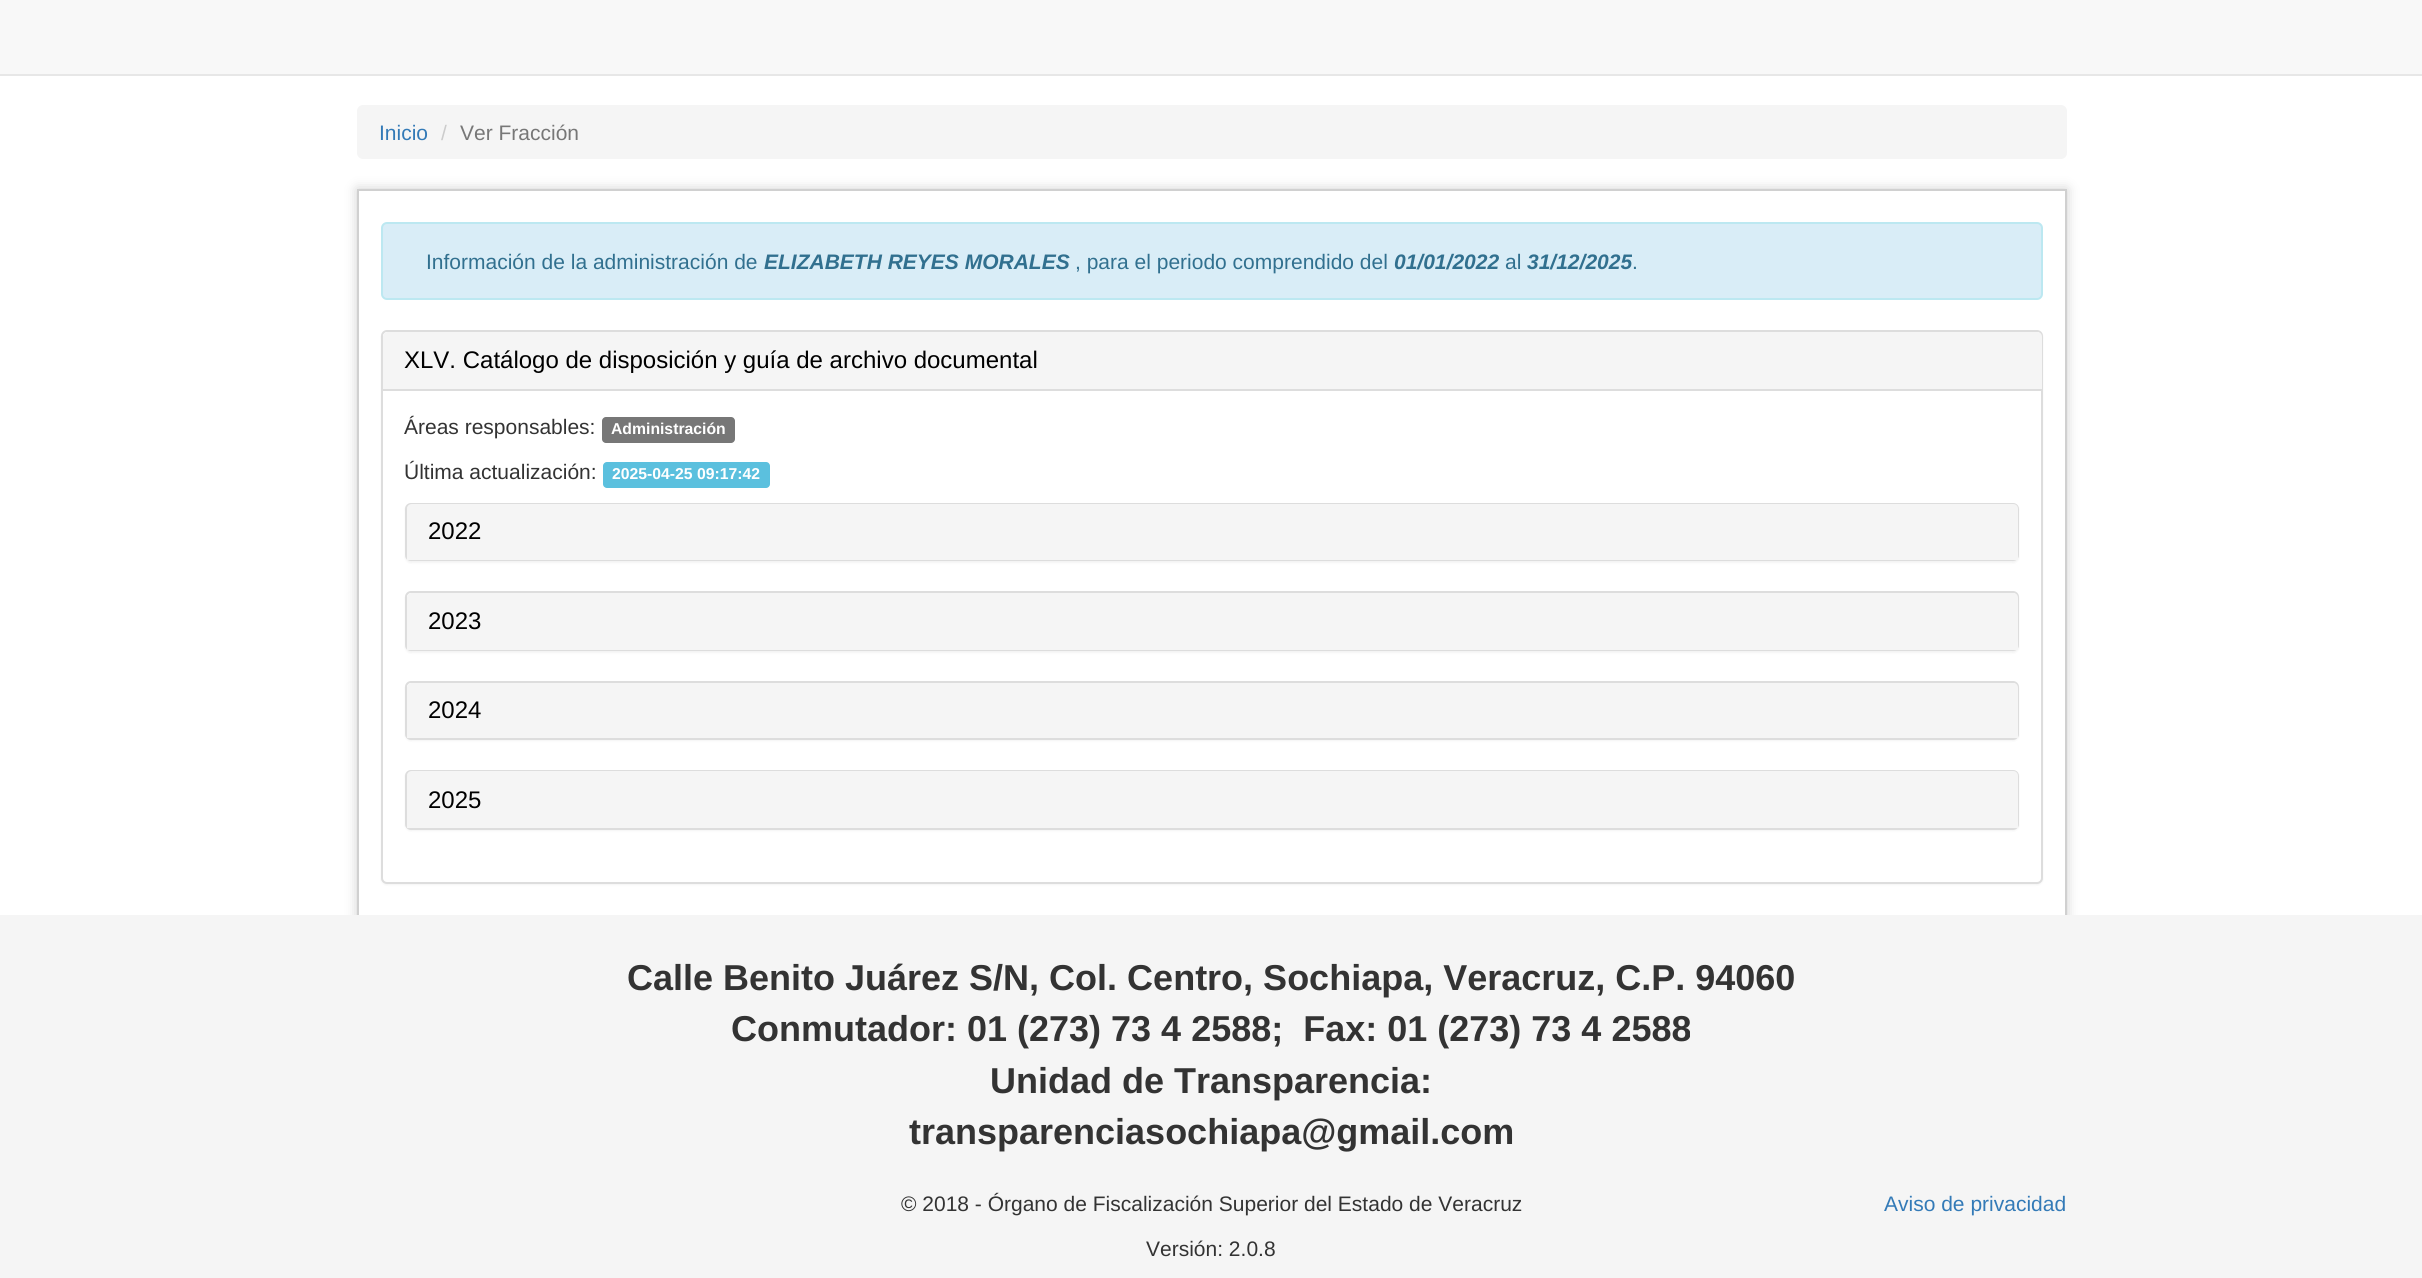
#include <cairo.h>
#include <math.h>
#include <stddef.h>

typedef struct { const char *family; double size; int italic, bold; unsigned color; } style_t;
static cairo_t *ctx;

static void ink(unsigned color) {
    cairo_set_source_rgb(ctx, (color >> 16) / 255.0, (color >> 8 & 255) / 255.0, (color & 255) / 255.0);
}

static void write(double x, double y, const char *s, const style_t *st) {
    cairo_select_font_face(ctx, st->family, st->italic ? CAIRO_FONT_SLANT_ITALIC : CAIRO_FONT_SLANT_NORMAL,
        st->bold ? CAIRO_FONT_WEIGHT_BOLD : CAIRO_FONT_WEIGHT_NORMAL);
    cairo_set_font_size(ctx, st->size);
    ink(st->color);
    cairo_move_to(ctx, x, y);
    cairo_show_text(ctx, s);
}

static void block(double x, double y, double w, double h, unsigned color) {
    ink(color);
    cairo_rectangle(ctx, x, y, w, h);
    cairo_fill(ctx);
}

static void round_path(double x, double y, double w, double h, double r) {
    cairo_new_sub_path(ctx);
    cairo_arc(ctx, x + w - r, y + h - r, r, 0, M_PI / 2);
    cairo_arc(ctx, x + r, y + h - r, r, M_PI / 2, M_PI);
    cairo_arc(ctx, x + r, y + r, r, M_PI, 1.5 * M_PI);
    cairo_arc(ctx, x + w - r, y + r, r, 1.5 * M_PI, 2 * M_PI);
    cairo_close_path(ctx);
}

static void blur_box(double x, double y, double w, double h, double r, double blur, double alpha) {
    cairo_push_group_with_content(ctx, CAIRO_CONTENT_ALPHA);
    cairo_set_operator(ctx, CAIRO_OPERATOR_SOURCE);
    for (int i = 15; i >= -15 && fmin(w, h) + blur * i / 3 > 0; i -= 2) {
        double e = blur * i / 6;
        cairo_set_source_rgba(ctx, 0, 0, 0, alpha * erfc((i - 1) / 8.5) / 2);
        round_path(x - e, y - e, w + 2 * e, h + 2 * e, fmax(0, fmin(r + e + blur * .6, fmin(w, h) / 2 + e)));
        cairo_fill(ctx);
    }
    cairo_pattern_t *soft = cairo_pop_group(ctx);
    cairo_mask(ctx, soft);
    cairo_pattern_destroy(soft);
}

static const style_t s1 = {"Liberation Sans", 21, 0, 0, 0x337ab7};
static const style_t s2 = {"Liberation Sans", 21, 0, 0, 0xcccccc};
static const style_t s3 = {"Liberation Sans", 21, 0, 0, 0x777777};
static const style_t s4 = {"Liberation Sans", 21, 0, 0, 0x31708f};
static const style_t s5 = {"Liberation Sans", 21, 1, 1, 0x31708f};
static const style_t s6 = {"Liberation Sans", 24, 0, 0, 0x000000};
static const style_t s7 = {"Liberation Sans", 21, 0, 0, 0x333333};
static const style_t s8 = {"Liberation Sans", 15.75, 0, 1, 0xffffff};
static const style_t s9 = {"Liberation Sans", 36, 0, 1, 0x333333};

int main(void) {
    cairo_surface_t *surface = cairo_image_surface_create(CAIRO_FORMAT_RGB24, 2422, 1278);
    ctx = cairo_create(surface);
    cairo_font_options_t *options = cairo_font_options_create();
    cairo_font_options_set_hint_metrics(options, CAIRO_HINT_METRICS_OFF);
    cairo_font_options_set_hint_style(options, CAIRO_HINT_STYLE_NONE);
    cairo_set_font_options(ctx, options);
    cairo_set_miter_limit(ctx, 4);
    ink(0xffffff);
    cairo_paint(ctx);
    block(0, 0, 2422, 74, 0xf8f8f8);
    block(0, 74, 2422, 2, 0xe7e7e7);
    ink(0xf5f5f5);
    round_path(357, 105, 1710, 54, 6);
    cairo_fill(ctx);
    write(379, 140, "Inicio", &s1);
    write(441, 140, "/", &s2);
    write(460, 140, "Ver Fracción", &s3);
    cairo_save(ctx);
    cairo_set_fill_rule(ctx, CAIRO_FILL_RULE_EVEN_ODD);
    cairo_new_path(ctx);
    cairo_move_to(ctx, 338, 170);
    cairo_line_to(ctx, 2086, 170);
    cairo_line_to(ctx, 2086, 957);
    cairo_line_to(ctx, 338, 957);
    cairo_close_path(ctx);
    cairo_move_to(ctx, 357, 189);
    cairo_line_to(ctx, 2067, 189);
    cairo_line_to(ctx, 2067, 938);
    cairo_line_to(ctx, 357, 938);
    cairo_close_path(ctx);
    cairo_clip(ctx);
    ink(0xd0d0d0);
    blur_box(357, 189, 1710, 749, 0, 6, 1);
    cairo_restore(ctx);
    cairo_rectangle(ctx, 358, 190, 1708, 747);
    ink(0xd0d0d0);
    cairo_stroke(ctx);
    ink(0xd9edf7);
    round_path(382, 223, 1660, 76, 5);
    cairo_fill_preserve(ctx);
    ink(0xbce8f1);
    cairo_stroke(ctx);
    write(426, 269, "Información de la administración de", &s4);
    write(764, 269, "ELIZABETH REYES MORALES", &s5);
    write(1075, 269, ", para el periodo comprendido del", &s4);
    write(1394, 269, "01/01/2022", &s5);
    write(1505, 269, "al", &s4);
    write(1527, 269, "31/12/2025", &s5);
    write(1632, 269, ".", &s4);
    ink(0x000000);
    blur_box(381, 332, 1662, 553, 6, 1, 0.05);
    ink(0xffffff);
    round_path(382, 331, 1660, 552, 5);
    cairo_fill_preserve(ctx);
    ink(0xdddddd);
    cairo_stroke(ctx);
    ink(0xf5f5f5);
    cairo_new_path(ctx);
    cairo_move_to(ctx, 388, 332);
    cairo_line_to(ctx, 2037, 332);
    cairo_curve_to(ctx, 2040, 332, 2042, 334, 2042, 337);
    cairo_line_to(ctx, 2042, 390);
    cairo_line_to(ctx, 383, 390);
    cairo_line_to(ctx, 383, 337);
    cairo_curve_to(ctx, 383, 334, 385, 332, 388, 332);
    cairo_close_path(ctx);
    cairo_fill(ctx);
    block(383, 389, 1659, 2, 0xdddddd);
    write(404, 368, "XLV. Catálogo de disposición y guía de archivo documental", &s6);
    write(404, 434, "Áreas responsables:", &s7);
    ink(0x777777);
    round_path(602, 417, 133, 26, 4);
    cairo_fill(ctx);
    write(611, 434, "Administración", &s8);
    write(404, 479, "Última actualización:", &s7);
    ink(0x5bc0de);
    round_path(603, 462, 167, 26, 4);
    cairo_fill(ctx);
    write(612, 479, "2025-04-25 09:17:42", &s8);
    ink(0x000000);
    blur_box(405, 504, 1614, 59, 6, 1, 0.05);
    round_path(406, 504, 1612, 56, 5);
    ink(0xdddddd);
    cairo_stroke(ctx);
    ink(0xf5f5f5);
    cairo_new_path(ctx);
    cairo_move_to(ctx, 412, 504);
    cairo_line_to(ctx, 2013, 504);
    cairo_curve_to(ctx, 2016, 504, 2018, 506, 2018, 509);
    cairo_line_to(ctx, 2018, 560);
    cairo_line_to(ctx, 407, 560);
    cairo_line_to(ctx, 407, 509);
    cairo_curve_to(ctx, 407, 506, 409, 504, 412, 504);
    cairo_close_path(ctx);
    cairo_fill(ctx);
    write(428, 539, "2022", &s6);
    ink(0x000000);
    blur_box(405, 593, 1614, 60, 6, 1, 0.05);
    ink(0xffffff);
    round_path(406, 592, 1612, 58, 5);
    cairo_fill_preserve(ctx);
    ink(0xdddddd);
    cairo_stroke(ctx);
    ink(0xf5f5f5);
    cairo_new_path(ctx);
    cairo_move_to(ctx, 412, 593);
    cairo_line_to(ctx, 2013, 593);
    cairo_curve_to(ctx, 2016, 593, 2018, 595, 2018, 598);
    cairo_line_to(ctx, 2018, 650);
    cairo_line_to(ctx, 407, 650);
    cairo_line_to(ctx, 407, 598);
    cairo_curve_to(ctx, 407, 595, 409, 593, 412, 593);
    cairo_close_path(ctx);
    cairo_fill(ctx);
    write(428, 629, "2023", &s6);
    ink(0x000000);
    blur_box(405, 683, 1614, 58, 6, 1, 0.05);
    ink(0xffffff);
    round_path(406, 682, 1612, 57, 5);
    cairo_fill_preserve(ctx);
    ink(0xdddddd);
    cairo_stroke(ctx);
    ink(0xf5f5f5);
    cairo_new_path(ctx);
    cairo_move_to(ctx, 412, 683);
    cairo_line_to(ctx, 2013, 683);
    cairo_curve_to(ctx, 2016, 683, 2018, 685, 2018, 688);
    cairo_line_to(ctx, 2018, 738);
    cairo_line_to(ctx, 407, 738);
    cairo_line_to(ctx, 407, 688);
    cairo_curve_to(ctx, 407, 685, 409, 683, 412, 683);
    cairo_close_path(ctx);
    cairo_fill(ctx);
    write(428, 718, "2024", &s6);
    ink(0x000000);
    blur_box(405, 771, 1614, 60, 6, 1, 0.05);
    round_path(406, 771, 1612, 58, 5);
    ink(0xdddddd);
    cairo_stroke(ctx);
    ink(0xf5f5f5);
    cairo_new_path(ctx);
    cairo_move_to(ctx, 412, 771);
    cairo_line_to(ctx, 2013, 771);
    cairo_curve_to(ctx, 2016, 771, 2018, 773, 2018, 776);
    cairo_line_to(ctx, 2018, 828);
    cairo_line_to(ctx, 407, 828);
    cairo_line_to(ctx, 407, 776);
    cairo_curve_to(ctx, 407, 773, 409, 771, 412, 771);
    cairo_close_path(ctx);
    cairo_fill(ctx);
    write(428, 808, "2025", &s6);
    block(0, 915, 2422, 363, 0xf5f5f5);
    write(627, 990, "Calle Benito Juárez S/N, Col. Centro, Sochiapa, Veracruz, C.P. 94060", &s9);
    write(731, 1041, "Conmutador: 01 (273) 73 4 2588;  Fax: 01 (273) 73 4 2588", &s9);
    write(990, 1093, "Unidad de Transparencia:", &s9);
    write(909, 1144, "transparenciasochiapa@gmail.com", &s9);
    write(901, 1211, "© 2018 - Órgano de Fiscalización Superior del Estado de Veracruz", &s7);
    write(1146, 1256, "Versión: 2.0.8", &s7);
    write(1884, 1211, "Aviso de privacidad", &s1);
    cairo_surface_write_to_png(surface, "screenshot.png");
    cairo_font_options_destroy(options);
    cairo_destroy(ctx);
    cairo_surface_destroy(surface);
    return 0;
}
